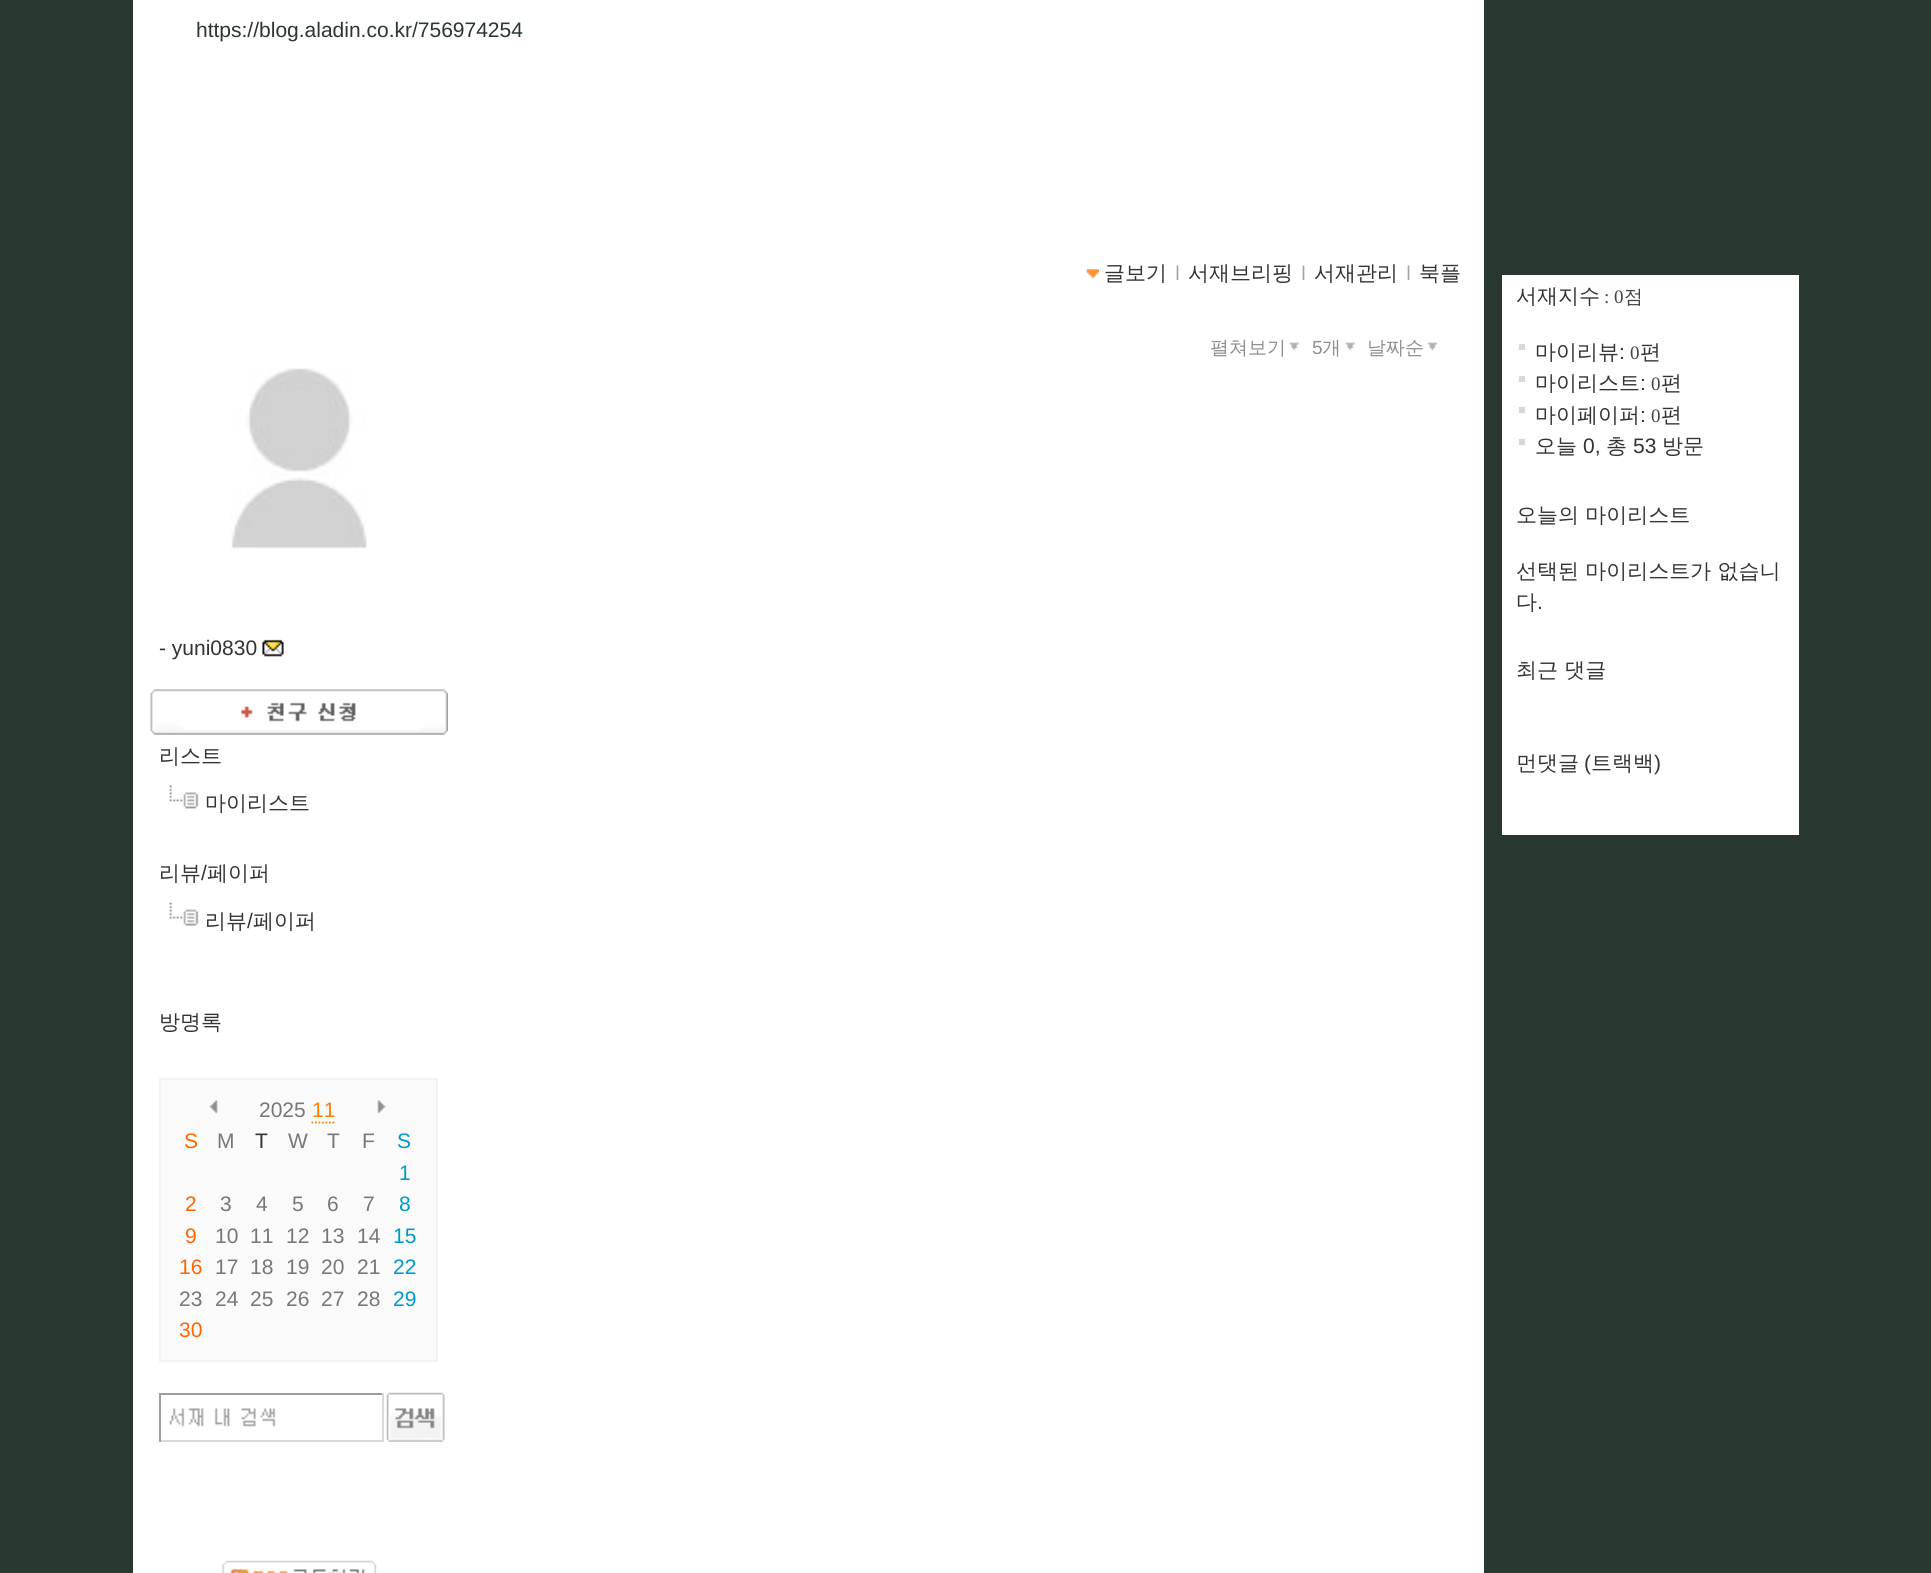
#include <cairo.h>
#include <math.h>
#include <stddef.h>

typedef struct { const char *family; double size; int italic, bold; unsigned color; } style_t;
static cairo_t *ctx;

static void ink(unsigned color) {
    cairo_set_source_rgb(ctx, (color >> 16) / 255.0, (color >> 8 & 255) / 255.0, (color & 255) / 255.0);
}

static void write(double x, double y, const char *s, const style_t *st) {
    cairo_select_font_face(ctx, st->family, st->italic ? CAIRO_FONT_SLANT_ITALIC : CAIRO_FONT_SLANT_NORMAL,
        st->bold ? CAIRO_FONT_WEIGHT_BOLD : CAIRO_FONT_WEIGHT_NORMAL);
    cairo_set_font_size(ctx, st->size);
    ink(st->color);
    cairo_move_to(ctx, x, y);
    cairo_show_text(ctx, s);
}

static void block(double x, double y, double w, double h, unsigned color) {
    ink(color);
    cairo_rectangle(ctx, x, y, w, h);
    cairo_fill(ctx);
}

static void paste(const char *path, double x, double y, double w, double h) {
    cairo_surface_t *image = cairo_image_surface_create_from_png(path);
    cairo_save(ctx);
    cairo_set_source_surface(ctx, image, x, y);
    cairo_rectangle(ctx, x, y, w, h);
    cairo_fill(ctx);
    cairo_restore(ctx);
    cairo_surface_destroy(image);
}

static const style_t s1 = {"Liberation Sans", 21, 0, 0, 0x28382f};
static const style_t s2 = {"WenQuanYi Zen Hei Medium", 21, 0, 0, 0x333333};
static const style_t s3 = {"WenQuanYi Zen Hei Medium", 21, 0, 0, 0xa1a1a1};
static const style_t s4 = {"WenQuanYi Zen Hei Medium", 19, 0, 0, 0x8f8f8f};
static const style_t s5 = {"Liberation Sans", 19, 0, 0, 0x8f8f8f};
static const style_t s6 = {"Liberation Sans", 21, 0, 0, 0x333333};
static const style_t s7 = {"Liberation Sans", 21, 0, 0, 0x777777};
static const style_t s8 = {"Liberation Sans", 21, 0, 0, 0xff7e00};
static const style_t s9 = {"Liberation Sans", 21, 0, 0, 0xff6600};
static const style_t s10 = {"Liberation Sans", 21, 0, 0, 0x0099cc};
static const style_t s11 = {"Liberation Serif", 19, 0, 0, 0x454545};
static const style_t s12 = {"WenQuanYi Zen Hei Medium", 19, 0, 0, 0x454545};

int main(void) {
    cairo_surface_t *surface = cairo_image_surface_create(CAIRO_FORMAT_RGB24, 1931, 1573);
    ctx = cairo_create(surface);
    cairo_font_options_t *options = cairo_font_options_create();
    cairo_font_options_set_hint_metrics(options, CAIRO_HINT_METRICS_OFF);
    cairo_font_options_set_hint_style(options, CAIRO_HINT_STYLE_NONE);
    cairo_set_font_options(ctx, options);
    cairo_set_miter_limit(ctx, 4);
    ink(0x28382f);
    cairo_paint(ctx);
    block(133, 0, 1351, 1573, 0xffffff);
    write(196, 37, "https://blog.aladin.co.kr/756974254", &s1);
    paste("pic1.png", 1086, 269, 13, 9);
    write(1104, 280, "글보기", &s2);
    write(1167, 280, "ｌ", &s3);
    write(1188, 280, "서재브리핑", &s2);
    write(1293, 280, "ｌ", &s3);
    write(1314, 280, "서재관리", &s2);
    write(1398, 280, "ｌ", &s3);
    write(1419, 280, "북플", &s2);
    write(1210, 354, "펼쳐보기", &s4);
    paste("pic2.png", 1289, 342, 10, 9);
    write(1312, 354, "5", &s5);
    write(1322, 354, "개", &s4);
    paste("pic2.png", 1345, 342, 10, 9);
    write(1367, 354, "날짜순", &s4);
    paste("pic3.png", 1427, 342, 11, 9);
    paste("pic4.png", 231, 368, 136, 181);
    write(159, 655, "- yuni0830", &s6);
    paste("pic5.png", 262, 639, 22, 18);
    paste("pic6.png", 150, 689, 298, 46);
    write(159, 763, "리스트", &s2);
    paste("pic7.png", 169, 785, 30, 24);
    write(205, 810, "마이리스트", &s2);
    write(159, 880, "리뷰", &s2);
    write(201, 880, "/", &s6);
    write(207, 880, "페이퍼", &s2);
    paste("pic8.png", 169, 902, 30, 24);
    write(205, 928, "리뷰", &s2);
    write(247, 928, "/", &s6);
    write(253, 928, "페이퍼", &s2);
    write(159, 1029, "방명록", &s2);
    ink(0xfafafa);
    cairo_rectangle(ctx, 160, 1079, 277, 282);
    cairo_fill_preserve(ctx);
    ink(0xf3f3f3);
    cairo_stroke(ctx);
    paste("pic9.png", 209, 1100, 9, 14);
    write(259, 1117, "2025", &s7);
    write(312, 1117, "11", &s8);
    cairo_new_path(ctx);
    cairo_move_to(ctx, 311.5, 1122.5);
    cairo_line_to(ctx, 336, 1122.5);
    cairo_set_line_width(ctx, 1.8);
    cairo_set_dash(ctx, (double[]){1.75, 1.75}, 2, 0);
    cairo_stroke(ctx);
    paste("pic10.png", 377, 1100, 9, 14);
    write(184, 1148, "S", &s9);
    write(217, 1148, "M", &s7);
    write(255, 1148, "T", &s6);
    write(288, 1148, "W", &s7);
    write(327, 1148, "T", &s7);
    write(362, 1148, "F", &s7);
    write(397, 1148, "S", &s10);
    write(399, 1180, "1", &s10);
    write(185, 1211, "2", &s9);
    write(220, 1211, "3", &s7);
    write(256, 1211, "4", &s7);
    write(292, 1211, "5", &s7);
    write(327, 1211, "6", &s7);
    write(363, 1211, "7", &s7);
    write(399, 1211, "8", &s10);
    write(185, 1243, "9", &s9);
    write(215, 1243, "10", &s7);
    write(250, 1243, "11", &s7);
    write(286, 1243, "12", &s7);
    write(321, 1243, "13", &s7);
    write(357, 1243, "14", &s7);
    write(393, 1243, "15", &s10);
    write(179, 1274, "16", &s9);
    write(215, 1274, "17", &s7);
    write(250, 1274, "18", &s7);
    write(286, 1274, "19", &s7);
    write(321, 1274, "20", &s7);
    write(357, 1274, "21", &s7);
    write(393, 1274, "22", &s10);
    write(179, 1306, "23", &s7);
    write(215, 1306, "24", &s7);
    write(250, 1306, "25", &s7);
    write(286, 1306, "26", &s7);
    write(321, 1306, "27", &s7);
    write(357, 1306, "28", &s7);
    write(393, 1306, "29", &s10);
    write(179, 1337, "30", &s9);
    paste("pic11.png", 169, 1408, 107, 19);
    block(159, 1393, 224, 2, 0x9e9e9e);
    block(382, 1393, 2, 49, 0xd9d9d9);
    block(159, 1440, 224, 2, 0xd9d9d9);
    block(159, 1393, 2, 49, 0x9e9e9e);
    paste("pic12.png", 386, 1392, 59, 50);
    paste("pic13.png", 222, 1560, 155, 13);
    block(1502, 275, 297, 560, 0xffffff);
    write(1516, 303, "서재지수", &s2);
    write(1604, 303, ": 0", &s11);
    write(1624, 303, "점", &s12);
    block(1519, 344, 6, 6, 0xd7d7d7);
    write(1535, 359, "마이리뷰", &s2);
    write(1619, 359, ":", &s6);
    write(1630, 359, "0", &s11);
    write(1640, 359, "편", &s2);
    block(1519, 376, 6, 6, 0xd7d7d7);
    write(1535, 390, "마이리스트", &s2);
    write(1640, 390, ":", &s6);
    write(1651, 390, "0", &s11);
    write(1661, 390, "편", &s2);
    block(1519, 407, 6, 6, 0xd7d7d7);
    write(1535, 422, "마이페이퍼", &s2);
    write(1640, 422, ":", &s6);
    write(1651, 422, "0", &s11);
    write(1661, 422, "편", &s2);
    block(1519, 439, 6, 6, 0xd7d7d7);
    write(1535, 453, "오늘", &s2);
    write(1583, 453, "0,", &s6);
    write(1606, 453, "총", &s2);
    write(1633, 453, "53", &s6);
    write(1662, 453, "방문", &s2);
    write(1516, 522, "오늘의 마이리스트", &s2);
    write(1516, 578, "선택된 마이리스트가 없습니", &s2);
    write(1516, 609, "다", &s2);
    write(1537, 609, ".", &s6);
    write(1516, 677, "최근 댓글", &s2);
    write(1516, 770, "먼댓글", &s2);
    write(1584, 770, "(", &s6);
    write(1591, 770, "트랙백", &s2);
    write(1654, 770, ")", &s6);
    cairo_surface_write_to_png(surface, "screenshot.png");
    cairo_font_options_destroy(options);
    cairo_destroy(ctx);
    cairo_surface_destroy(surface);
    return 0;
}
